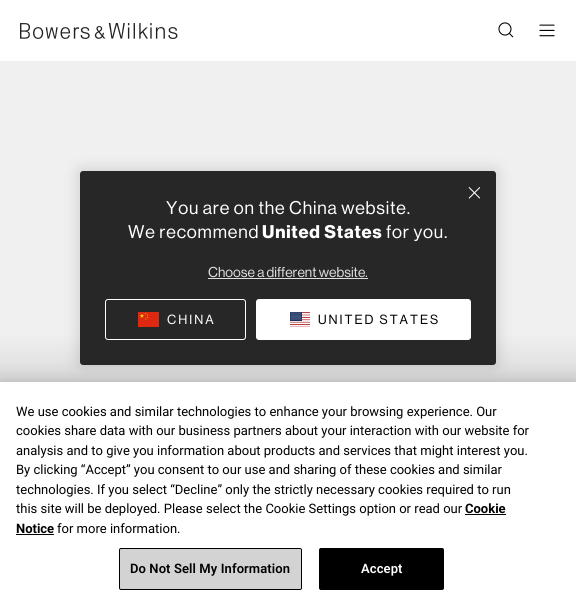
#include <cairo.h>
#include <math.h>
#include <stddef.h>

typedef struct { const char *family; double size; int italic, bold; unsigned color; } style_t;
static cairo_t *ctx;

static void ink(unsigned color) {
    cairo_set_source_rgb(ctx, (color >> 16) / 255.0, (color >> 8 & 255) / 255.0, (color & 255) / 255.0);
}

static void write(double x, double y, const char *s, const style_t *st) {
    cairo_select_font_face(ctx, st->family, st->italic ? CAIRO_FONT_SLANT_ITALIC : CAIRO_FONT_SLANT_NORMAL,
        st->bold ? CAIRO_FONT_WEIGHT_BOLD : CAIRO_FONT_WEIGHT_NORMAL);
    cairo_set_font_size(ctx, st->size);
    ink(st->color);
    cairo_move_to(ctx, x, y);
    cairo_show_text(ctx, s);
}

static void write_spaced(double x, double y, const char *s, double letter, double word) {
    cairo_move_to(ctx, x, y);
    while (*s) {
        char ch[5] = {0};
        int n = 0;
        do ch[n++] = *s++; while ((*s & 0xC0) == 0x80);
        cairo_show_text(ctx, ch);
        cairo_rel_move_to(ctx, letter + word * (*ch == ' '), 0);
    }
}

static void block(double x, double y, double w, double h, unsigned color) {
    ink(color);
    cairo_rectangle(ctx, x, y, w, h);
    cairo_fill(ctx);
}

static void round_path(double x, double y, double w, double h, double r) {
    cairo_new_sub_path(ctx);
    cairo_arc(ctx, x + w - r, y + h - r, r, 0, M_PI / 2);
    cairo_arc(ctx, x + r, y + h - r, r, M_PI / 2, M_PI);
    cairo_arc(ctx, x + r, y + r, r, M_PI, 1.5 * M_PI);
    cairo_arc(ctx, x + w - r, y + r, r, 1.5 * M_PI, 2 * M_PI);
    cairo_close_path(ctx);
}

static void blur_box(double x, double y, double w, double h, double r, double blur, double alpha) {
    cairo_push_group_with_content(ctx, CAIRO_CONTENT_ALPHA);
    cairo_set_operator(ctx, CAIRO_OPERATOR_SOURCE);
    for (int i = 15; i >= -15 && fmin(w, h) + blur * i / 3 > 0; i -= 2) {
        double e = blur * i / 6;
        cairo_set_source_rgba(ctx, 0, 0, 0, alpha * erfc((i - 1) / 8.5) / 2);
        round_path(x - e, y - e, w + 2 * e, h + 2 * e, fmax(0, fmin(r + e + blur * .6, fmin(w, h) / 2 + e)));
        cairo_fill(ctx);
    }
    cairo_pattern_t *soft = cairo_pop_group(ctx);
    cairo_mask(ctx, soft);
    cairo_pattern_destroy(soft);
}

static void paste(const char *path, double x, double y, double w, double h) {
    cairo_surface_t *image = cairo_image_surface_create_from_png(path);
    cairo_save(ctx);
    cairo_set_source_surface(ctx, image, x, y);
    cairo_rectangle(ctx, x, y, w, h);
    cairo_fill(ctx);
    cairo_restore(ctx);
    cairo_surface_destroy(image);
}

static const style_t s1 = {"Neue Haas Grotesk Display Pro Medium", 14, 0, 0, 0xdfdfdf};
static const style_t s2 = {"Roboto", 13, 0, 0, 0x000000};
static const style_t s3 = {"Roboto", 13, 0, 1, 0x000000};

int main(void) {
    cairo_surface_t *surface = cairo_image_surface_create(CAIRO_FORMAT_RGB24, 576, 606);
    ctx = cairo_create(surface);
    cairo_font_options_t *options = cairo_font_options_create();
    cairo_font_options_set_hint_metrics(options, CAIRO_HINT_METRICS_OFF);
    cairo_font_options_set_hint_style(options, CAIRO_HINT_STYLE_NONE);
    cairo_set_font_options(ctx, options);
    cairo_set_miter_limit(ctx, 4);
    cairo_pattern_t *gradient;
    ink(0xffffff);
    cairo_paint(ctx);
    paste("pic1.png", 20, 23, 158, 16);
    paste("pic2.png", 498, 22, 16, 16);
    paste("pic3.png", 539, 24, 16, 13);
    gradient = cairo_pattern_create_linear(288, 606, 288, 61);
    cairo_pattern_add_color_stop_rgba(gradient, 0, 0.471, 0.471, 0.471, 1);
    cairo_pattern_add_color_stop_rgba(gradient, 0.5, 0.941, 0.941, 0.941, 1);
    cairo_set_source(ctx, gradient);
    cairo_pattern_destroy(gradient);
    cairo_rectangle(ctx, 0, 61, 576, 321);
    cairo_fill(ctx);
    ink(0x000000);
    blur_box(77, 168, 422, 200, 6, 7.5, 0.12);
    ink(0x282727);
    round_path(80, 171, 416, 194, 3);
    cairo_fill(ctx);
    paste("pic4.png", 468, 187, 13, 12);
    cairo_select_font_face(ctx, "Neue Haas Grotesk Display Pro Medium", CAIRO_FONT_SLANT_NORMAL, CAIRO_FONT_WEIGHT_NORMAL);
    cairo_set_font_size(ctx, 18);
    ink(0xffffff);
    write_spaced(166, 214, "You are on the China website.", 0.8, 0);
    write_spaced(128, 238, "We recommend", 0.8, 0);
    cairo_select_font_face(ctx, "Neue Haas Grotesk Display Pro", CAIRO_FONT_SLANT_NORMAL, CAIRO_FONT_WEIGHT_BOLD);
    write_spaced(262, 238, "United States", 0.8, 0);
    cairo_select_font_face(ctx, "Neue Haas Grotesk Display Pro Medium", CAIRO_FONT_SLANT_NORMAL, CAIRO_FONT_WEIGHT_NORMAL);
    write_spaced(386, 238, "for you.", 0.8, 0);
    write(208, 277, "Choose a different website.", &s1);
    block(208, 278, 160, 1, 0xdfdfdf);
    round_path(105.5, 299.5, 140, 40, 2.5);
    ink(0xffffff);
    cairo_set_line_width(ctx, 1);
    cairo_stroke(ctx);
    paste("pic5.png", 138, 312, 21, 15);
    cairo_set_font_size(ctx, 13);
    write_spaced(167, 324, "CHINA", 2, 0);
    round_path(256.5, 299.5, 214, 40, 2.5);
    cairo_fill_preserve(ctx);
    cairo_stroke(ctx);
    paste("pic6.png", 290, 312, 20, 15);
    ink(0x000000);
    write_spaced(318, 324, "UNITED STATES", 2, 0);
    ink(0x000000);
    blur_box(0, 382, 576, 224, 0, 9, 0.2);
    block(0, 382, 576, 224, 0xffffff);
    write(16, 416, "We use cookies and similar technologies to enhance your browsing experience. Our", &s2);
    write(16, 435, "cookies share data with our business partners about your interaction with our website for", &s2);
    write(16, 455, "analysis and to give you information about products and services that might interest you.", &s2);
    write(16, 474, "By clicking “Accept” you consent to our use and sharing of these cookies and similar", &s2);
    write(16, 494, "technologies. If you select “Decline” only the strictly necessary cookies required to run", &s2);
    write(16, 513, "this site will be deployed. Please select the Cookie Settings option or read our", &s2);
    write(465, 513, "Cookie", &s3);
    block(465, 514, 41, 1, 0x000000);
    write(16, 533, "Notice", &s3);
    block(16, 534, 38, 1, 0x000000);
    write(57, 533, "for more information.", &s2);
    ink(0xd3d3d3);
    round_path(119.5, 548.5, 182, 41, 1.5);
    cairo_fill_preserve(ctx);
    ink(0x000000);
    cairo_stroke(ctx);
    cairo_select_font_face(ctx, "Roboto SemiBold", CAIRO_FONT_SLANT_NORMAL, CAIRO_FONT_WEIGHT_NORMAL);
    write_spaced(130, 573, "Do Not Sell My Information", 0.1, 0);
    round_path(319.5, 548.5, 124, 41, 1.5);
    cairo_fill_preserve(ctx);
    cairo_stroke(ctx);
    ink(0xffffff);
    write_spaced(361, 573, "Accept", 0.1, 0);
    cairo_surface_write_to_png(surface, "screenshot.png");
    cairo_font_options_destroy(options);
    cairo_destroy(ctx);
    cairo_surface_destroy(surface);
    return 0;
}
